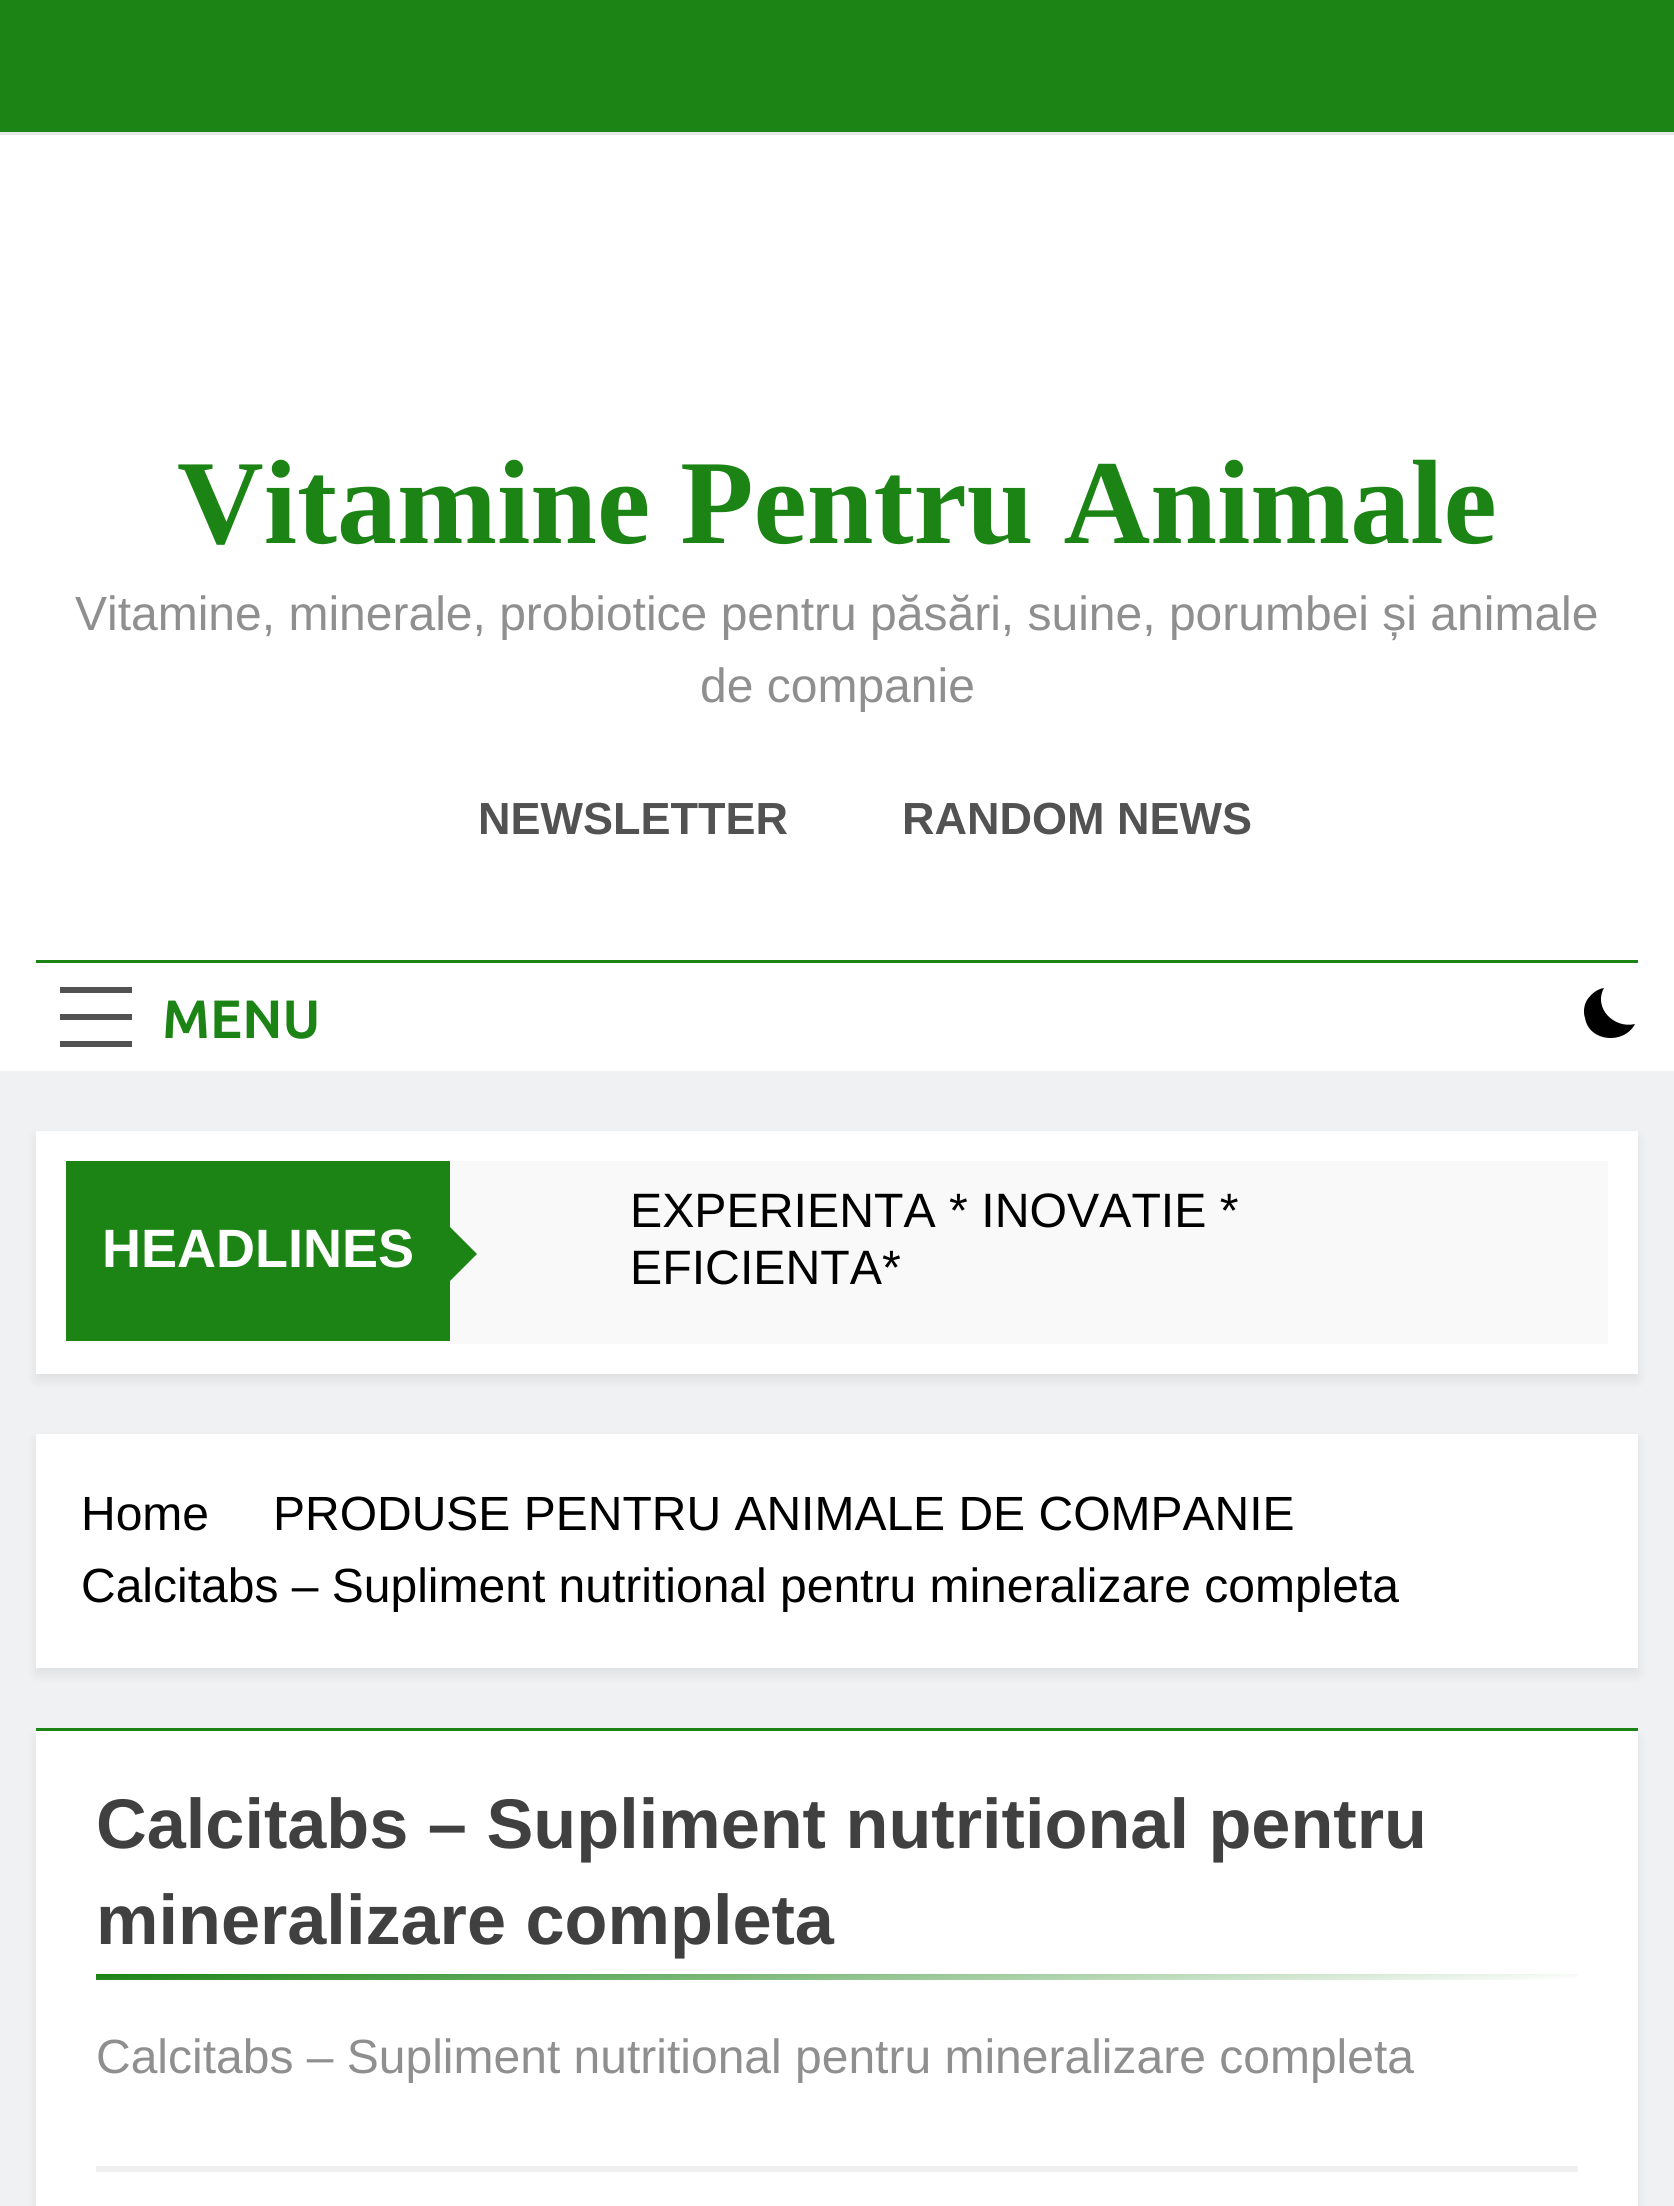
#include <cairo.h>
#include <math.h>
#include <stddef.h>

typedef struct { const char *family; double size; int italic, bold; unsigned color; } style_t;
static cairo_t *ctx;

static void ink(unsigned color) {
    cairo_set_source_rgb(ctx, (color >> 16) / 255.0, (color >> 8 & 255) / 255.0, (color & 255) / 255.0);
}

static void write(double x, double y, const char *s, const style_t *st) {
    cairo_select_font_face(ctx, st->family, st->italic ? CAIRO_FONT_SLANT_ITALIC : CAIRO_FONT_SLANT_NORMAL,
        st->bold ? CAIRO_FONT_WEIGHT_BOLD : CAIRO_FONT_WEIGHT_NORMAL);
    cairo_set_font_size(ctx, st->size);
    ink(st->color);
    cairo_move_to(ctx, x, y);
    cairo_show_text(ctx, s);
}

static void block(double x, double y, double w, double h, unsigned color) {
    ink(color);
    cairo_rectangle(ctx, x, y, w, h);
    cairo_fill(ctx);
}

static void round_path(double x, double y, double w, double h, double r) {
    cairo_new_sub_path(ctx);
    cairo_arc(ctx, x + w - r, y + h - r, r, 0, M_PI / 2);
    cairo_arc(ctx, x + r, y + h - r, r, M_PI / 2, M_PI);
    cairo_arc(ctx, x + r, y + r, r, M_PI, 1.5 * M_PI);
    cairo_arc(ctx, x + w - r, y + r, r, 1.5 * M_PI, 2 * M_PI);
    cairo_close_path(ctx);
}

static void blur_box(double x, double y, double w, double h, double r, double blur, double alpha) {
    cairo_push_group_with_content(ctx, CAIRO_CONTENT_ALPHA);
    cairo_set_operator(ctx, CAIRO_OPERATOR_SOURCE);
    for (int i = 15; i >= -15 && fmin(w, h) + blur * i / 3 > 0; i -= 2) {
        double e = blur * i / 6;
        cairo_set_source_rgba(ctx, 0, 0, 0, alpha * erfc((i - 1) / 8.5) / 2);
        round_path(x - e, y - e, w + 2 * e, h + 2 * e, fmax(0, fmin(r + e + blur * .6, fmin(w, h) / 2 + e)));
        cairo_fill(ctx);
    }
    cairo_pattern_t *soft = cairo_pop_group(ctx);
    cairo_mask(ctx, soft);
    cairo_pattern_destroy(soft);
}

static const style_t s1 = {"Liberation Serif", 120, 0, 1, 0x1b8415};
static const style_t s2 = {"Liberation Sans", 48, 0, 0, 0x8f8f8f};
static const style_t s3 = {"Liberation Sans", 45, 0, 1, 0x525252};
static const style_t s4 = {"Ubuntu", 54, 0, 1, 0x1b8415};
static const style_t s5 = {"Liberation Sans", 54, 0, 1, 0xffffff};
static const style_t s6 = {"Liberation Sans", 48.25, 0, 0, 0x000000};
static const style_t s7 = {"Liberation Sans", 48, 0, 0, 0x000000};
static const style_t s8 = {"Liberation Sans", 70.25, 0, 1, 0x404040};

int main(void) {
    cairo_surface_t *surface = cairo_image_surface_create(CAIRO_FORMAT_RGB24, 1674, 2206);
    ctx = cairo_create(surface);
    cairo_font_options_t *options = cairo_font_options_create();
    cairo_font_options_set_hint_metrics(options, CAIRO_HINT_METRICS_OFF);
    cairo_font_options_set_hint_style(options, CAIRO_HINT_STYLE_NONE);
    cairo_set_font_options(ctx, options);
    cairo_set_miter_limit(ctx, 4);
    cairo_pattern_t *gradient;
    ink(0xf0f1f2);
    cairo_paint(ctx);
    block(0, 0, 1674, 132, 0x1b8415);
    block(0, 132, 1674, 3, 0xe8e8e8);
    block(0, 135, 1674, 936, 0xffffff);
    write(177, 543, "Vitamine Pentru Animale", &s1);
    write(75, 630, "Vitamine, minerale, probiotice pentru păsări, suine, porumbei și animale", &s2);
    write(700, 702, "de companie", &s2);
    write(478, 834, "NEWSLETTER", &s3);
    write(902, 834, "RANDOM NEWS", &s3);
    block(36, 960, 1602, 3, 0x1b8415);
    block(60, 987, 72, 6, 0x525252);
    block(60, 1014, 72, 6, 0x525252);
    block(60, 1041, 72, 6, 0x525252);
    write(162, 1038, "MENU", &s4);
    ink(0x000000);
    cairo_new_path(ctx);
    cairo_move_to(ctx, 1635, 1024);
    cairo_curve_to(ctx, 1614, 1029, 1593, 1008, 1604, 988);
    cairo_curve_to(ctx, 1597, 989, 1591, 994, 1587, 1000);
    cairo_curve_to(ctx, 1584, 1005, 1583, 1012, 1585, 1018);
    cairo_curve_to(ctx, 1589, 1042, 1624, 1045, 1635, 1024);
    cairo_close_path(ctx);
    cairo_fill(ctx);
    ink(0x000000);
    blur_box(36, 1137, 1602, 243, 0, 6, 0.08);
    block(36, 1131, 1602, 243, 0xffffff);
    block(66, 1161, 384, 180, 0x1b8415);
    write(102, 1267, "HEADLINES", &s5);
    block(450, 1161, 1158, 183, 0xf9f9f9);
    ink(0x1b8415);
    cairo_new_path(ctx);
    cairo_move_to(ctx, 447, 1284);
    cairo_line_to(ctx, 447, 1224);
    cairo_line_to(ctx, 477, 1254);
    cairo_close_path(ctx);
    cairo_fill(ctx);
    write(630, 1227, "EXPERIENTA * INOVATIE *", &s6);
    write(630, 1284, "EFICIENTA*", &s6);
    ink(0x000000);
    blur_box(36, 1440, 1602, 234, 0, 6, 0.08);
    block(36, 1434, 1602, 234, 0xffffff);
    write(81, 1530, "Home", &s7);
    write(273, 1530, "PRODUSE PENTRU ANIMALE DE COMPANIE", &s7);
    write(81, 1602, "Calcitabs – Supliment nutritional pentru mineralizare completa", &s7);
    ink(0x000000);
    blur_box(36, 1737, 1602, 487, 0, 6, 0.08);
    block(36, 1731, 1602, 475, 0xffffff);
    block(36, 1728, 1602, 3, 0x1b8415);
    block(96, 2166, 1482, 6, 0xf0f0f0);
    write(96, 1848, "Calcitabs – Supliment nutritional pentru", &s8);
    write(96, 1944, "mineralizare completa", &s8);
    gradient = cairo_pattern_create_linear(833, 1922, 841, 2032);
    cairo_pattern_add_color_stop_rgba(gradient, 0, 0.106, 0.518, 0.082, 1);
    cairo_pattern_add_color_stop_rgba(gradient, 1, 1, 1, 1, 1);
    cairo_set_source(ctx, gradient);
    cairo_pattern_destroy(gradient);
    cairo_rectangle(ctx, 96, 1974, 1482, 6);
    cairo_fill(ctx);
    write(96, 2073, "Calcitabs – Supliment nutritional pentru mineralizare completa", &s2);
    cairo_surface_write_to_png(surface, "screenshot.png");
    cairo_font_options_destroy(options);
    cairo_destroy(ctx);
    cairo_surface_destroy(surface);
    return 0;
}
